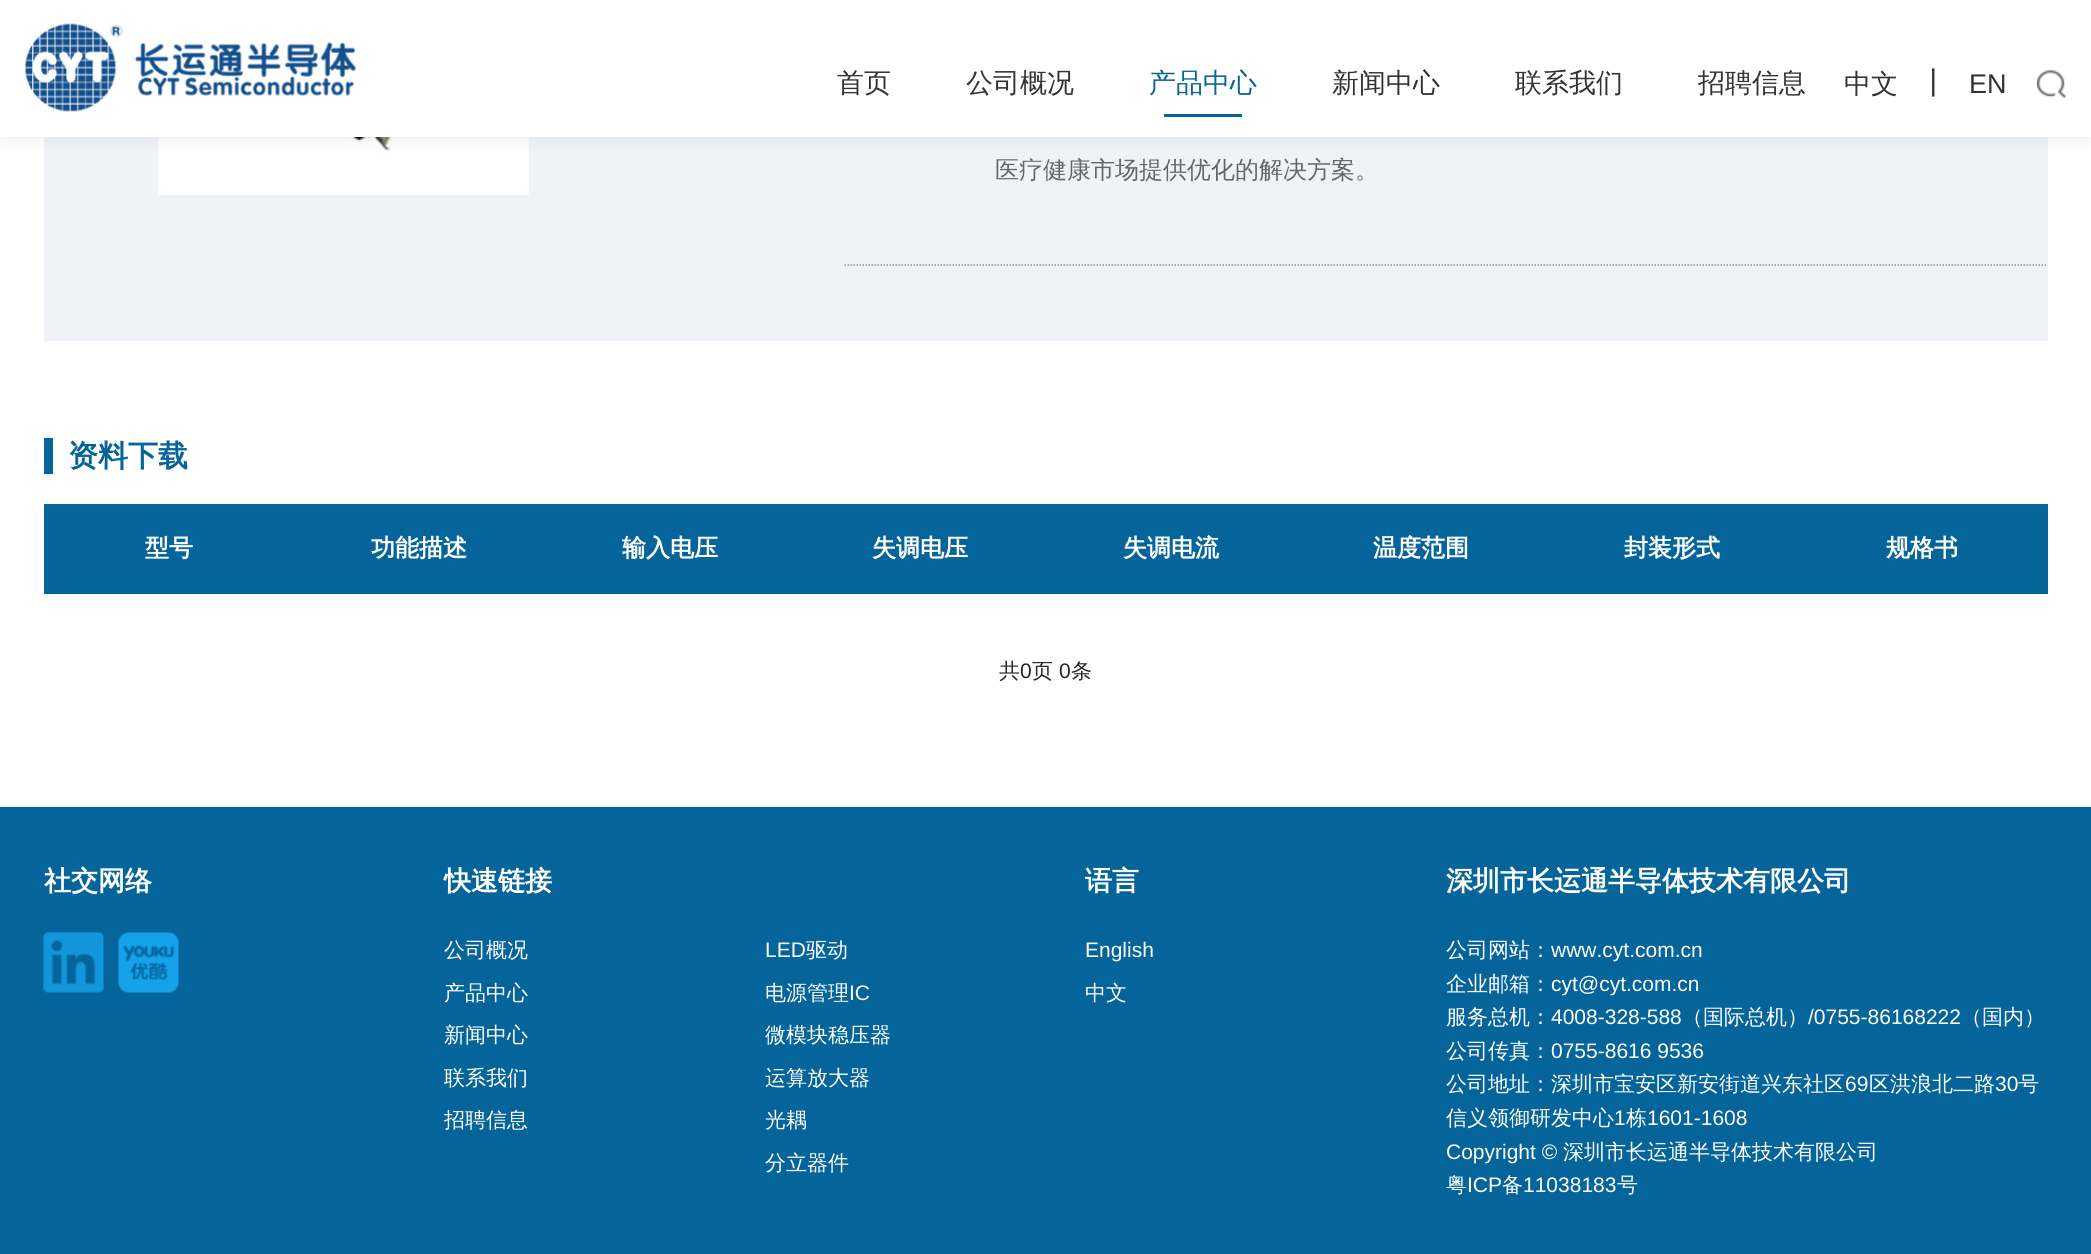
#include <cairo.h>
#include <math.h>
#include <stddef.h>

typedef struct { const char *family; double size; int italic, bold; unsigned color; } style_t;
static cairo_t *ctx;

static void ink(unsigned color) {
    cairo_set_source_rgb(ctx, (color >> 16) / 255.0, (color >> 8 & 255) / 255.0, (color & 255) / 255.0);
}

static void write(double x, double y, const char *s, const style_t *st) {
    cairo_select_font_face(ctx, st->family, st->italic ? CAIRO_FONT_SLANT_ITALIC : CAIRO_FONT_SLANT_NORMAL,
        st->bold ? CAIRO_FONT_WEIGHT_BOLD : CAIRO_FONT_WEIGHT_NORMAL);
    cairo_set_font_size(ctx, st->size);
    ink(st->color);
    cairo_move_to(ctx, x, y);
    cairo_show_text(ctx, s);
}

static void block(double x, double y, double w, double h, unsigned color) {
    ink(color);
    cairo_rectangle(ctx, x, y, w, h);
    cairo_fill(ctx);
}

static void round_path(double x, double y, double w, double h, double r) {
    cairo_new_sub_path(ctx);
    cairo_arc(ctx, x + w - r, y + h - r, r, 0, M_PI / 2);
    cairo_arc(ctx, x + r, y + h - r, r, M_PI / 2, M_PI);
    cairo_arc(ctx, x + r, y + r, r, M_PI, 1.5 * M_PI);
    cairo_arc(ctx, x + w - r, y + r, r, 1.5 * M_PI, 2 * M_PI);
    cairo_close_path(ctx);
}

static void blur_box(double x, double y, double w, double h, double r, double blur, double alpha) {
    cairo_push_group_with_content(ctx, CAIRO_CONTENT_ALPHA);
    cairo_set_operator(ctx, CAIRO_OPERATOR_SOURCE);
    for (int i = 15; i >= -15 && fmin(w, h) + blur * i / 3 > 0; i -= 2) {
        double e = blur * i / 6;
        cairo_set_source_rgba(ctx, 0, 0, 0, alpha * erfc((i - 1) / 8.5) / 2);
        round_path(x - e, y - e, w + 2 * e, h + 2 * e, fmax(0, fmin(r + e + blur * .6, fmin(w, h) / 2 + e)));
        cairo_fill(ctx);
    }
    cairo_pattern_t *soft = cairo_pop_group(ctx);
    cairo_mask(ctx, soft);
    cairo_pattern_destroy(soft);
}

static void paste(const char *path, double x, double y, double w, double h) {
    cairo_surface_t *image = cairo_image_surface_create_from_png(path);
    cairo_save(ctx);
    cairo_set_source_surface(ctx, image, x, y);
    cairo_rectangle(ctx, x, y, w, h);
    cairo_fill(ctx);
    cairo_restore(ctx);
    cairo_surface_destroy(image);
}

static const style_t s1 = {"WenQuanYi Zen Hei Medium", 27, 0, 0, 0x333333};
static const style_t s2 = {"WenQuanYi Zen Hei Medium", 27, 0, 0, 0x05649a};
static const style_t s3 = {"WenQuanYi Zen Hei Medium", 30, 0, 0, 0x333333};
static const style_t s4 = {"Liberation Sans", 27, 0, 0, 0x333333};
static const style_t s5 = {"WenQuanYi Zen Hei Medium", 24, 0, 0, 0x666666};
static const style_t s6 = {"WenQuanYi Zen Hei", 30, 0, 1, 0x05649a};
static const style_t s7 = {"WenQuanYi Zen Hei", 24, 0, 1, 0xffffff};
static const style_t s8 = {"WenQuanYi Zen Hei Medium", 21, 0, 0, 0x262626};
static const style_t s9 = {"Liberation Sans", 21, 0, 0, 0x262626};
static const style_t s10 = {"WenQuanYi Zen Hei", 27, 0, 1, 0xffffff};
static const style_t s11 = {"WenQuanYi Zen Hei Medium", 21, 0, 0, 0xffffff};
static const style_t s12 = {"Liberation Sans", 21, 0, 0, 0xffffff};

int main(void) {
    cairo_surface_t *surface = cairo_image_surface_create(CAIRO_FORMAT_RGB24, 2091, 1254);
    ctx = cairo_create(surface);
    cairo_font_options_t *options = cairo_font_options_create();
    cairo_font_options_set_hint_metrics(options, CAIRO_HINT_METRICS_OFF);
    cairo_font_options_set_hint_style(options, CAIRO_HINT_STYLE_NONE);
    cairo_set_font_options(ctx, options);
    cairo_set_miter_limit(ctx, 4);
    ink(0xffffff);
    cairo_paint(ctx);
    block(44, 137, 2004, 204, 0xeff3f7);
    paste("pic3.png", 158, 137, 371, 58);
    ink(0x181818);
    blur_box(0, 0, 2091, 137, 0, 7.5, 0.1);
    block(0, 0, 2091, 137, 0xffffff);
    paste("pic1.png", 25, 23, 331, 89);
    write(837, 92, "首页", &s1);
    write(966, 92, "公司概况", &s1);
    write(1149, 92, "产品中心", &s2);
    write(1332, 92, "新闻中心", &s1);
    write(1515, 92, "联系我们", &s1);
    write(1698, 92, "招聘信息", &s1);
    block(1164, 114, 78, 3, 0x05649a);
    write(1844, 93, "中文", &s1);
    write(1919, 93, "丨", &s3);
    write(1969, 93, "EN", &s4);
    paste("pic2.png", 2037, 70, 29, 28);
    cairo_new_path(ctx);
    cairo_move_to(ctx, 844.5, 265);
    cairo_line_to(ctx, 2047.5, 265);
    ink(0x999999);
    cairo_set_line_width(ctx, 1.5);
    cairo_set_dash(ctx, (double[]){1.5, 1.5}, 2, 0);
    cairo_stroke(ctx);
    write(995, 178, "医疗健康市场提供优化的解决方案。", &s5);
    block(44, 438, 9, 36, 0x05649a);
    write(68, 466, "资料下载", &s6);
    block(44, 504, 2004, 90, 0x05649a);
    write(145, 556, "型号", &s7);
    write(371, 556, "功能描述", &s7);
    write(622, 556, "输入电压", &s7);
    write(872, 556, "失调电压", &s7);
    write(1123, 556, "失调电流", &s7);
    write(1373, 556, "温度范围", &s7);
    write(1624, 556, "封装形式", &s7);
    write(1886, 556, "规格书", &s7);
    write(999, 678, "共", &s8);
    write(1020, 678, "0", &s9);
    write(1032, 678, "页", &s8);
    write(1059, 678, "0", &s9);
    write(1071, 678, "条", &s8);
    block(0, 807, 2091, 447, 0x05649a);
    write(44, 890, "社交网络", &s10);
    paste("pic4.png", 43, 932, 61, 61);
    paste("pic5.png", 118, 932, 61, 61);
    write(444, 890, "快速链接", &s10);
    write(444, 957, "公司概况", &s11);
    write(444, 1000, "产品中心", &s11);
    write(444, 1042, "新闻中心", &s11);
    write(444, 1085, "联系我们", &s11);
    write(444, 1127, "招聘信息", &s11);
    write(765, 957, "LED", &s12);
    write(806, 957, "驱动", &s11);
    write(765, 1000, "电源管理", &s11);
    write(849, 1000, "IC", &s12);
    write(765, 1042, "微模块稳压器", &s11);
    write(765, 1085, "运算放大器", &s11);
    write(765, 1127, "光耦", &s11);
    write(765, 1170, "分立器件", &s11);
    write(1085, 890, "语言", &s10);
    write(1085, 957, "English", &s12);
    write(1085, 1000, "中文", &s11);
    write(1446, 890, "深圳市长运通半导体技术有限公司", &s10);
    write(1446, 957, "公司网站：", &s11);
    write(1551, 957, "www.cyt.com.cn", &s12);
    write(1446, 991, "企业邮箱：", &s11);
    write(1551, 991, "cyt@cyt.com.cn", &s12);
    write(1446, 1024, "服务总机：", &s11);
    write(1551, 1024, "4008-328-588", &s12);
    write(1682, 1024, "（国际总机）", &s11);
    write(1808, 1024, "/0755-86168222", &s12);
    write(1961, 1024, "（国内）", &s11);
    write(1446, 1058, "公司传真：", &s11);
    write(1551, 1058, "0755-8616 9536", &s12);
    write(1446, 1091, "公司地址：深圳市宝安区新安街道兴东社区", &s11);
    write(1845, 1091, "69", &s12);
    write(1869, 1091, "区洪浪北二路", &s11);
    write(1995, 1091, "30", &s12);
    write(2018, 1091, "号", &s11);
    write(1446, 1125, "信义领御研发中心", &s11);
    write(1614, 1125, "1", &s12);
    write(1626, 1125, "栋", &s11);
    write(1647, 1125, "1601-1608", &s12);
    write(1446, 1159, "Copyright ©", &s12);
    write(1563, 1159, "深圳市长运通半导体技术有限公司", &s11);
    write(1446, 1192, "粤", &s11);
    write(1467, 1192, "ICP", &s12);
    write(1502, 1192, "备", &s11);
    write(1523, 1192, "11038183", &s12);
    write(1617, 1192, "号", &s11);
    cairo_surface_write_to_png(surface, "screenshot.png");
    cairo_font_options_destroy(options);
    cairo_destroy(ctx);
    cairo_surface_destroy(surface);
    return 0;
}
